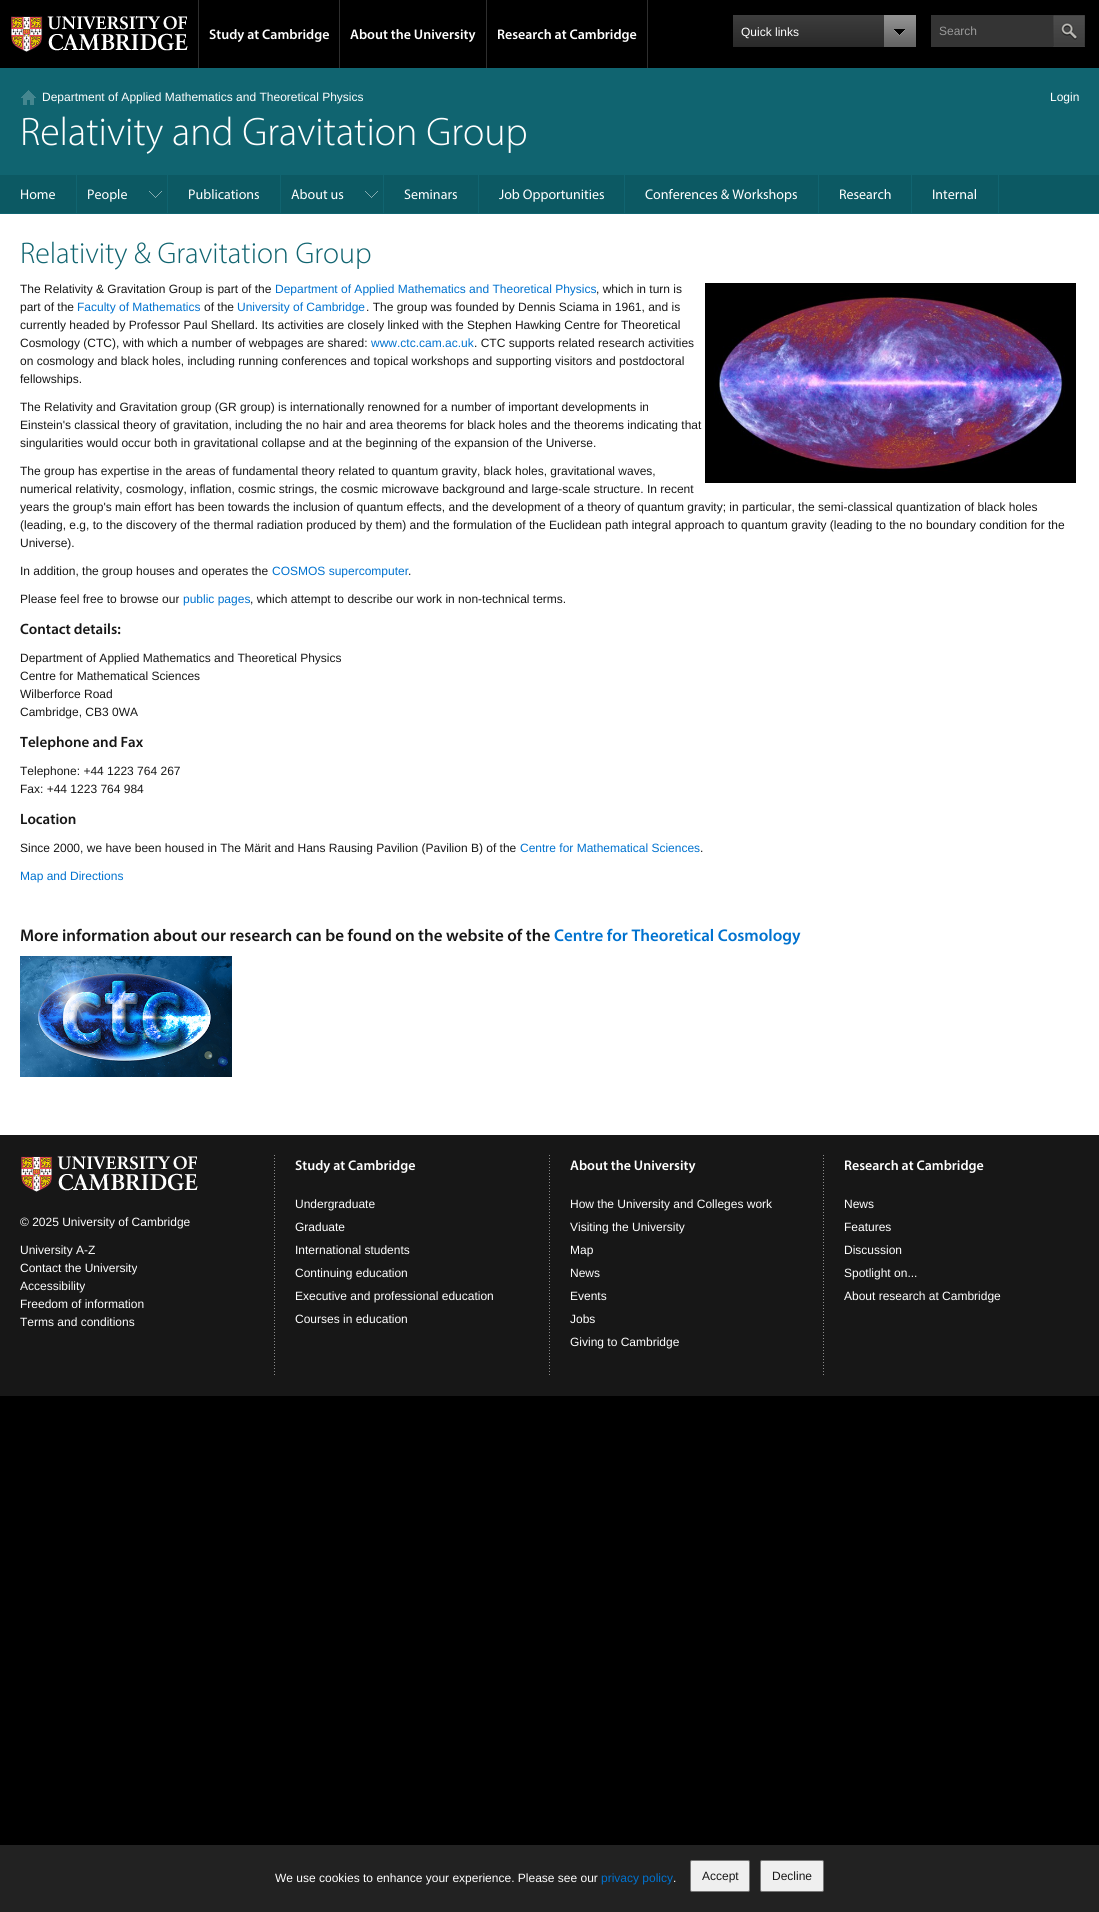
#include <cairo.h>
#include <math.h>
#include <stddef.h>

typedef struct { const char *family; double size; int italic, bold; unsigned color; } style_t;
static cairo_t *ctx;

static void ink(unsigned color) {
    cairo_set_source_rgb(ctx, (color >> 16) / 255.0, (color >> 8 & 255) / 255.0, (color & 255) / 255.0);
}

static void write(double x, double y, const char *s, const style_t *st) {
    cairo_select_font_face(ctx, st->family, st->italic ? CAIRO_FONT_SLANT_ITALIC : CAIRO_FONT_SLANT_NORMAL,
        st->bold ? CAIRO_FONT_WEIGHT_BOLD : CAIRO_FONT_WEIGHT_NORMAL);
    cairo_set_font_size(ctx, st->size);
    ink(st->color);
    cairo_move_to(ctx, x, y);
    cairo_show_text(ctx, s);
}

static void block(double x, double y, double w, double h, unsigned color) {
    ink(color);
    cairo_rectangle(ctx, x, y, w, h);
    cairo_fill(ctx);
}

static void round_path(double x, double y, double w, double h, double r) {
    cairo_new_sub_path(ctx);
    cairo_arc(ctx, x + w - r, y + h - r, r, 0, M_PI / 2);
    cairo_arc(ctx, x + r, y + h - r, r, M_PI / 2, M_PI);
    cairo_arc(ctx, x + r, y + r, r, M_PI, 1.5 * M_PI);
    cairo_arc(ctx, x + w - r, y + r, r, 1.5 * M_PI, 2 * M_PI);
    cairo_close_path(ctx);
}

static void paste(const char *path, double x, double y, double w, double h) {
    cairo_surface_t *image = cairo_image_surface_create_from_png(path);
    cairo_save(ctx);
    cairo_set_source_surface(ctx, image, x, y);
    cairo_rectangle(ctx, x, y, w, h);
    cairo_fill(ctx);
    cairo_restore(ctx);
    cairo_surface_destroy(image);
}

static const style_t s1 = {"Myriad SemiBold", 14, 0, 0, 0xffffff};
static const style_t s2 = {"Liberation Sans", 12, 0, 0, 0xffffff};
static const style_t s3 = {"Liberation Sans", 12, 0, 0, 0x999999};
static const style_t s4 = {"Myriad Light", 40, 0, 0, 0xffffff};
static const style_t s5 = {"Myriad", 14, 0, 0, 0xffffff};
static const style_t s6 = {"Myriad Light", 30, 0, 0, 0x106470};
static const style_t s7 = {"Liberation Sans", 12, 0, 0, 0x171717};
static const style_t s8 = {"Liberation Sans", 12, 0, 0, 0x0072cf};
static const style_t s9 = {"Myriad SemiBold", 15, 0, 0, 0x171717};
static const style_t s10 = {"Myriad SemiBold", 17, 0, 0, 0x171717};
static const style_t s11 = {"Myriad SemiBold", 17, 0, 0, 0x0072cf};

int main(void) {
    cairo_surface_t *surface = cairo_image_surface_create(CAIRO_FORMAT_RGB24, 1099, 1912);
    ctx = cairo_create(surface);
    cairo_font_options_t *options = cairo_font_options_create();
    cairo_font_options_set_hint_metrics(options, CAIRO_HINT_METRICS_OFF);
    cairo_font_options_set_hint_style(options, CAIRO_HINT_STYLE_NONE);
    cairo_set_font_options(ctx, options);
    cairo_set_miter_limit(ctx, 4);
    cairo_pattern_t *gradient;
    ink(0x000000);
    cairo_paint(ctx);
    paste("pic1.png", 11, 16, 177, 36);
    block(198, 0, 1, 68, 0x2e2e2e);
    block(339, 0, 1, 68, 0x2e2e2e);
    write(209, 39, "Study at Cambridge", &s1);
    block(486, 0, 1, 68, 0x2e2e2e);
    write(350, 39, "About the University", &s1);
    block(647, 0, 1, 68, 0x2e2e2e);
    write(497, 39, "Research at Cambridge", &s1);
    gradient = cairo_pattern_create_linear(825, 15, 825, 47);
    cairo_pattern_add_color_stop_rgba(gradient, 0, 0.239, 0.239, 0.239, 1);
    cairo_pattern_add_color_stop_rgba(gradient, 1, 0.161, 0.161, 0.161, 1);
    cairo_set_source(ctx, gradient);
    cairo_pattern_destroy(gradient);
    cairo_rectangle(ctx, 733, 15, 151, 32);
    cairo_fill(ctx);
    write(741, 36, "Quick links", &s2);
    paste("pic2.png", 884, 15, 32, 32);
    block(931, 15, 122, 32, 0x343434);
    write(939, 35, "Search", &s3);
    paste("pic3.png", 1053, 15, 32, 32);
    block(0, 68, 1099, 106, 0x106470);
    paste("pic4.png", 21, 90, 15, 15);
    write(42, 101, "Department of Applied Mathematics and Theoretical Physics", &s2);
    write(1050, 101, "Login", &s2);
    write(20, 145, "Relativity and Gravitation Group", &s4);
    block(999, 175, 100, 38, 0x0c5963);
    block(999, 174, 100, 1, 0x106470);
    block(999, 213, 100, 1, 0x106470);
    block(0, 175, 76, 38, 0x0c5963);
    block(0, 174, 77, 1, 0x106470);
    block(76, 174, 1, 40, 0x106470);
    block(0, 213, 77, 1, 0x106470);
    write(20, 199, "Home", &s5);
    block(77, 175, 90, 38, 0x0c5963);
    paste("pic5.png", 149, 191, 13, 7);
    block(77, 174, 204, 1, 0x106470);
    block(167, 174, 1, 40, 0x106470);
    block(77, 213, 91, 1, 0x106470);
    write(87, 199, "People", &s5);
    block(168, 175, 112, 38, 0x0c5963);
    block(280, 174, 1, 40, 0x106470);
    block(168, 213, 113, 1, 0x106470);
    write(188, 199, "Publications", &s5);
    block(281, 175, 102, 38, 0x0c5963);
    paste("pic5.png", 365, 191, 13, 7);
    block(281, 174, 718, 1, 0x106470);
    block(383, 174, 1, 40, 0x106470);
    block(281, 213, 103, 1, 0x106470);
    write(291, 199, "About us", &s5);
    block(384, 175, 94, 38, 0x0c5963);
    block(478, 174, 1, 40, 0x106470);
    block(384, 213, 95, 1, 0x106470);
    write(404, 199, "Seminars", &s5);
    block(479, 175, 145, 38, 0x0c5963);
    block(624, 174, 1, 40, 0x106470);
    block(479, 213, 146, 1, 0x106470);
    write(499, 199, "Job Opportunities", &s5);
    block(625, 175, 193, 38, 0x0c5963);
    block(818, 174, 1, 40, 0x106470);
    block(625, 213, 194, 1, 0x106470);
    write(645, 199, "Conferences & Workshops", &s5);
    block(819, 175, 92, 38, 0x0c5963);
    block(911, 174, 1, 40, 0x106470);
    block(819, 213, 93, 1, 0x106470);
    write(839, 199, "Research", &s5);
    block(912, 175, 86, 38, 0x0c5963);
    block(998, 174, 1, 40, 0x106470);
    block(912, 213, 87, 1, 0x106470);
    write(932, 199, "Internal", &s5);
    block(0, 214, 1099, 921, 0xffffff);
    write(20, 263, "Relativity & Gravitation Group", &s6);
    write(20, 293, "The Relativity & Gravitation Group is part of the", &s7);
    write(275, 293, "Department of Applied Mathematics and Theoretical Physics", &s8);
    write(596, 293, ", which in turn is", &s7);
    write(20, 311, "part of the", &s7);
    write(77, 311, "Faculty of Mathematics", &s8);
    write(204, 311, "of the", &s7);
    write(237, 311, "University of Cambridge", &s8);
    write(366, 311, ". The group was founded by Dennis Sciama in 1961, and is", &s7);
    write(20, 329, "currently headed by Professor Paul Shellard. Its activities are closely linked with the Stephen Hawking Centre for Theoretical", &s7);
    write(20, 347, "Cosmology (CTC), with which a number of webpages are shared:", &s7);
    write(371, 347, "www.ctc.cam.ac.uk", &s8);
    write(474, 347, ". CTC supports related research activities", &s7);
    write(20, 365, "on cosmology and black holes, including running conferences and topical workshops and supporting visitors and postdoctoral", &s7);
    write(20, 383, "fellowships.", &s7);
    paste("pic6.png", 705, 283, 371, 200);
    write(20, 411, "The Relativity and Gravitation group (GR group) is internationally renowned for a number of important developments in", &s7);
    write(20, 429, "Einstein's classical theory of gravitation, including the no hair and area theorems for black holes and the theorems indicating that", &s7);
    write(20, 447, "singularities would occur both in gravitational collapse and at the beginning of the expansion of the Universe.", &s7);
    write(20, 475, "The group has expertise in the areas of fundamental theory related to quantum gravity, black holes, gravitational waves,", &s7);
    write(20, 493, "numerical relativity, cosmology, inflation, cosmic strings, the cosmic microwave background and large-scale structure. In recent", &s7);
    write(20, 511, "years the group's main effort has been towards the inclusion of quantum effects, and the development of a theory of quantum gravity; in particular, the semi-classical quantization of black holes", &s7);
    write(20, 529, "(leading, e.g, to the discovery of the thermal radiation produced by them) and the formulation of the Euclidean path integral approach to quantum gravity (leading to the no boundary condition for the", &s7);
    write(20, 547, "Universe).", &s7);
    write(20, 575, "In addition, the group houses and operates the", &s7);
    write(272, 575, "COSMOS supercomputer", &s8);
    write(408, 575, ".", &s7);
    write(20, 603, "Please feel free to browse our", &s7);
    write(183, 603, "public pages", &s8);
    write(250, 603, ", which attempt to describe our work in non-technical terms.", &s7);
    write(20, 634, "Contact details:", &s9);
    write(20, 662, "Department of Applied Mathematics and Theoretical Physics", &s7);
    write(20, 680, "Centre for Mathematical Sciences", &s7);
    write(20, 698, "Wilberforce Road", &s7);
    write(20, 716, "Cambridge, CB3 0WA", &s7);
    write(20, 747, "Telephone and Fax", &s9);
    write(20, 775, "Telephone: +44 1223 764 267", &s7);
    write(20, 793, "Fax: +44 1223 764 984", &s7);
    write(20, 824, "Location", &s9);
    write(20, 852, "Since 2000, we have been housed in The Märit and Hans Rausing Pavilion (Pavilion B) of the", &s7);
    write(520, 852, "Centre for Mathematical Sciences", &s8);
    write(700, 852, ".", &s7);
    write(20, 880, "Map and Directions", &s8);
    write(20, 941, "More information about our research can be found on the website of the", &s10);
    write(554, 941, "Centre for Theoretical Cosmology", &s11);
    paste("pic7.png", 20, 956, 212, 121);
    block(0, 1135, 1099, 261, 0x171717);
    paste("pic8.png", 274, 1155, 1, 220);
    paste("pic9.png", 21, 1156, 177, 36);
    write(20, 1226, "© 2025 University of Cambridge", &s2);
    write(20, 1254, "University A-Z", &s2);
    write(20, 1272, "Contact the University", &s2);
    write(20, 1290, "Accessibility", &s2);
    write(20, 1308, "Freedom of information", &s2);
    write(20, 1326, "Terms and conditions", &s2);
    paste("pic8.png", 549, 1155, 1, 220);
    write(295, 1170, "Study at Cambridge", &s1);
    write(295, 1208, "Undergraduate", &s2);
    write(295, 1231, "Graduate", &s2);
    write(295, 1254, "International students", &s2);
    write(295, 1277, "Continuing education", &s2);
    write(295, 1300, "Executive and professional education", &s2);
    write(295, 1323, "Courses in education", &s2);
    paste("pic8.png", 823, 1155, 1, 220);
    write(570, 1170, "About the University", &s1);
    write(570, 1208, "How the University and Colleges work", &s2);
    write(570, 1231, "Visiting the University", &s2);
    write(570, 1254, "Map", &s2);
    write(570, 1277, "News", &s2);
    write(570, 1300, "Events", &s2);
    write(570, 1323, "Jobs", &s2);
    write(570, 1346, "Giving to Cambridge", &s2);
    write(844, 1170, "Research at Cambridge", &s1);
    write(844, 1208, "News", &s2);
    write(844, 1231, "Features", &s2);
    write(844, 1254, "Discussion", &s2);
    write(844, 1277, "Spotlight on...", &s2);
    write(844, 1300, "About research at Cambridge", &s2);
    block(0, 1845, 1099, 67, 0x222222);
    write(275, 1882, "We use cookies to enhance your experience. Please see our", &s2);
    write(601, 1882, "privacy policy", &s8);
    write(673, 1882, ".", &s2);
    ink(0xefefef);
    round_path(690.5, 1860.5, 59, 31, 1.5);
    cairo_fill_preserve(ctx);
    ink(0x767676);
    cairo_set_line_width(ctx, 1);
    cairo_stroke(ctx);
    write(702, 1880, "Accept", &s7);
    ink(0xefefef);
    round_path(760.5, 1860.5, 63, 31, 1.5);
    cairo_fill_preserve(ctx);
    ink(0x767676);
    cairo_stroke(ctx);
    write(772, 1880, "Decline", &s7);
    cairo_surface_write_to_png(surface, "screenshot.png");
    cairo_font_options_destroy(options);
    cairo_destroy(ctx);
    cairo_surface_destroy(surface);
    return 0;
}
